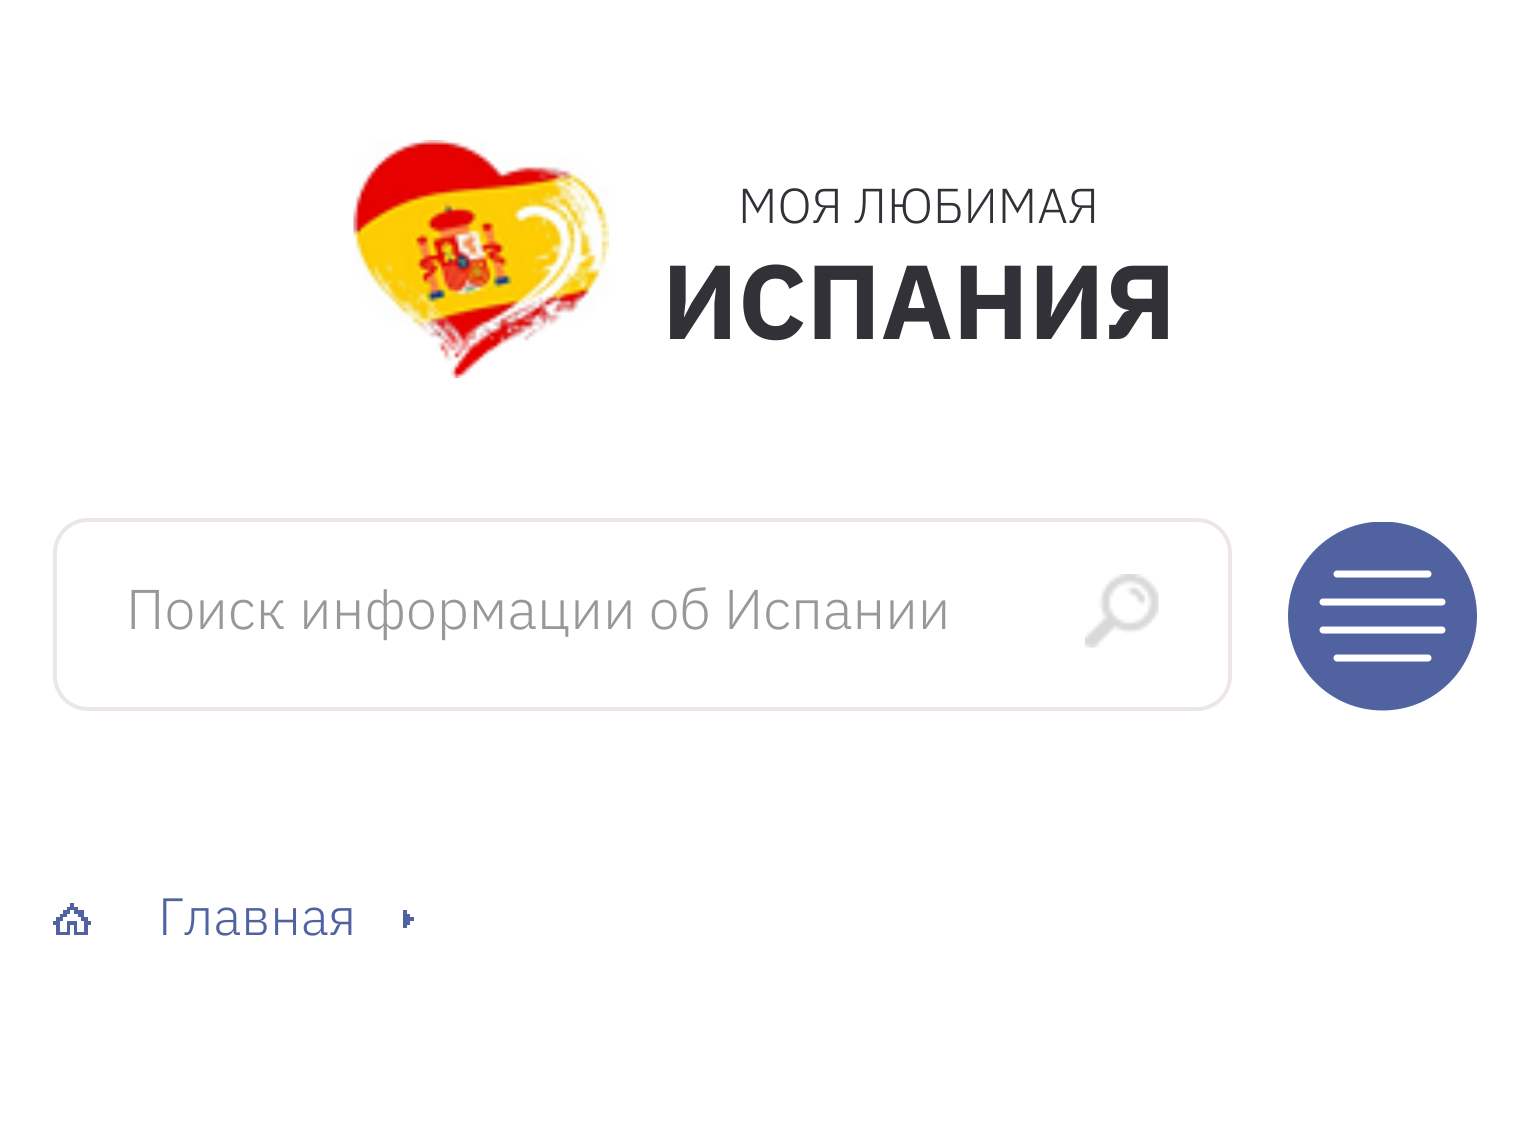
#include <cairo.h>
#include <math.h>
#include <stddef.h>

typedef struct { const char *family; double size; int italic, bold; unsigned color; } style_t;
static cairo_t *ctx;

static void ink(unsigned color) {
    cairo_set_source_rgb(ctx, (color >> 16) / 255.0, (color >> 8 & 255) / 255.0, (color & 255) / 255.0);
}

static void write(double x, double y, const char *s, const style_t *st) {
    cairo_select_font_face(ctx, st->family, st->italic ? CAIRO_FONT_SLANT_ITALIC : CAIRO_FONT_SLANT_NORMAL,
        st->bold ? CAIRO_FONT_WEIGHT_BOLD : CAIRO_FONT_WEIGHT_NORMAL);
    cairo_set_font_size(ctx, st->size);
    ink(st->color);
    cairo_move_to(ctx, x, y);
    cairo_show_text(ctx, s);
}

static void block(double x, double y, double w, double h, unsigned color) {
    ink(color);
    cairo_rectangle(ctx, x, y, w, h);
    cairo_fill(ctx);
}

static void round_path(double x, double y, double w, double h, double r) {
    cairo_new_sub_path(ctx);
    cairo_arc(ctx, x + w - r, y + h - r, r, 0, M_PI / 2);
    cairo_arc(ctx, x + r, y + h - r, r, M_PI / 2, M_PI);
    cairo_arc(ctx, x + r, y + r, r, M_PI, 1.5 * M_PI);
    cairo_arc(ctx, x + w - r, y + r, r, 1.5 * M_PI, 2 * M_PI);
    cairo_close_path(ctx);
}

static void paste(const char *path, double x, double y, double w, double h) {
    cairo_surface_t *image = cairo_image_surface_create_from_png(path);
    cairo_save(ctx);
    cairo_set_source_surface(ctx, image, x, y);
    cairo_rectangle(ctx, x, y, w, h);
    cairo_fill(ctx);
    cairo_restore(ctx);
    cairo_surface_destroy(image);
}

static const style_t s1 = {"IBM Plex Sans Light", 49, 0, 0, 0x313137};
static const style_t s2 = {"IBM Plex Sans", 105, 0, 1, 0x313137};
static const style_t s3 = {"IBM Plex Sans Light", 56, 0, 0, 0x98989b};
static const style_t s4 = {"IBM Plex Sans Light", 52.5, 0, 0, 0x5162a1};

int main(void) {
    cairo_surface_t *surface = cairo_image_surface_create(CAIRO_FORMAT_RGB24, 1527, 1133);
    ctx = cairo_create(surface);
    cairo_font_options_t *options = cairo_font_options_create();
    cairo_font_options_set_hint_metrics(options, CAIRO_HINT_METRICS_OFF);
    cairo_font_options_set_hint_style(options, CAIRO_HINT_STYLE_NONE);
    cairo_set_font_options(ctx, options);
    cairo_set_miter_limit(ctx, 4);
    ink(0xffffff);
    cairo_paint(ctx);
    paste("pic1.png", 353, 140, 256, 238);
    write(738, 223, "МОЯ ЛЮБИМАЯ", &s1);
    write(662, 339, "ИСПАНИЯ", &s2);
    round_path(55, 520, 1175, 189, 33);
    ink(0xece6e8);
    cairo_set_line_width(ctx, 4);
    cairo_stroke(ctx);
    write(126, 629, "Поиск информации об Испании", &s3);
    paste("pic2.png", 1085, 574, 74, 74);
    cairo_save(ctx);
    cairo_rectangle(ctx, 1288, 522, 189, 189);
    cairo_clip(ctx);
    ink(0x5162a1);
    cairo_arc(ctx, 1382.5, 616, 94.5, 0, 2 * M_PI);
    cairo_fill(ctx);
    cairo_restore(ctx);
    cairo_new_path(ctx);
    cairo_move_to(ctx, 1337, 574);
    cairo_line_to(ctx, 1428, 574);
    cairo_move_to(ctx, 1323, 630);
    cairo_line_to(ctx, 1442, 630);
    cairo_move_to(ctx, 1323, 602);
    cairo_line_to(ctx, 1442, 602);
    cairo_move_to(ctx, 1337, 658);
    cairo_line_to(ctx, 1428, 658);
    ink(0xffffff);
    cairo_set_line_width(ctx, 7);
    cairo_set_line_cap(ctx, CAIRO_LINE_CAP_ROUND);
    cairo_stroke(ctx);
    block(70, 903, 4, 4, 0x5162a1);
    block(67, 907, 11, 3, 0x5162a1);
    block(63, 910, 21, 4, 0x5162a1);
    block(60, 914, 24, 3, 0x5162a1);
    block(53, 921, 38, 4, 0x5162a1);
    block(74, 917, 14, 18, 0x5162a1);
    block(56, 917, 14, 18, 0x5162a1);
    block(77, 921, 7, 11, 0xffffff);
    block(60, 921, 7, 11, 0xffffff);
    block(63, 917, 18, 4, 0xffffff);
    block(67, 914, 11, 3, 0xffffff);
    block(70, 910, 4, 4, 0xffffff);
    write(158, 935, "Главная", &s4);
    block(403, 910, 4, 18, 0x5162a1);
    block(407, 914, 3, 11, 0x5162a1);
    block(410, 917, 4, 4, 0x5162a1);
    cairo_surface_write_to_png(surface, "screenshot.png");
    cairo_font_options_destroy(options);
    cairo_destroy(ctx);
    cairo_surface_destroy(surface);
    return 0;
}
